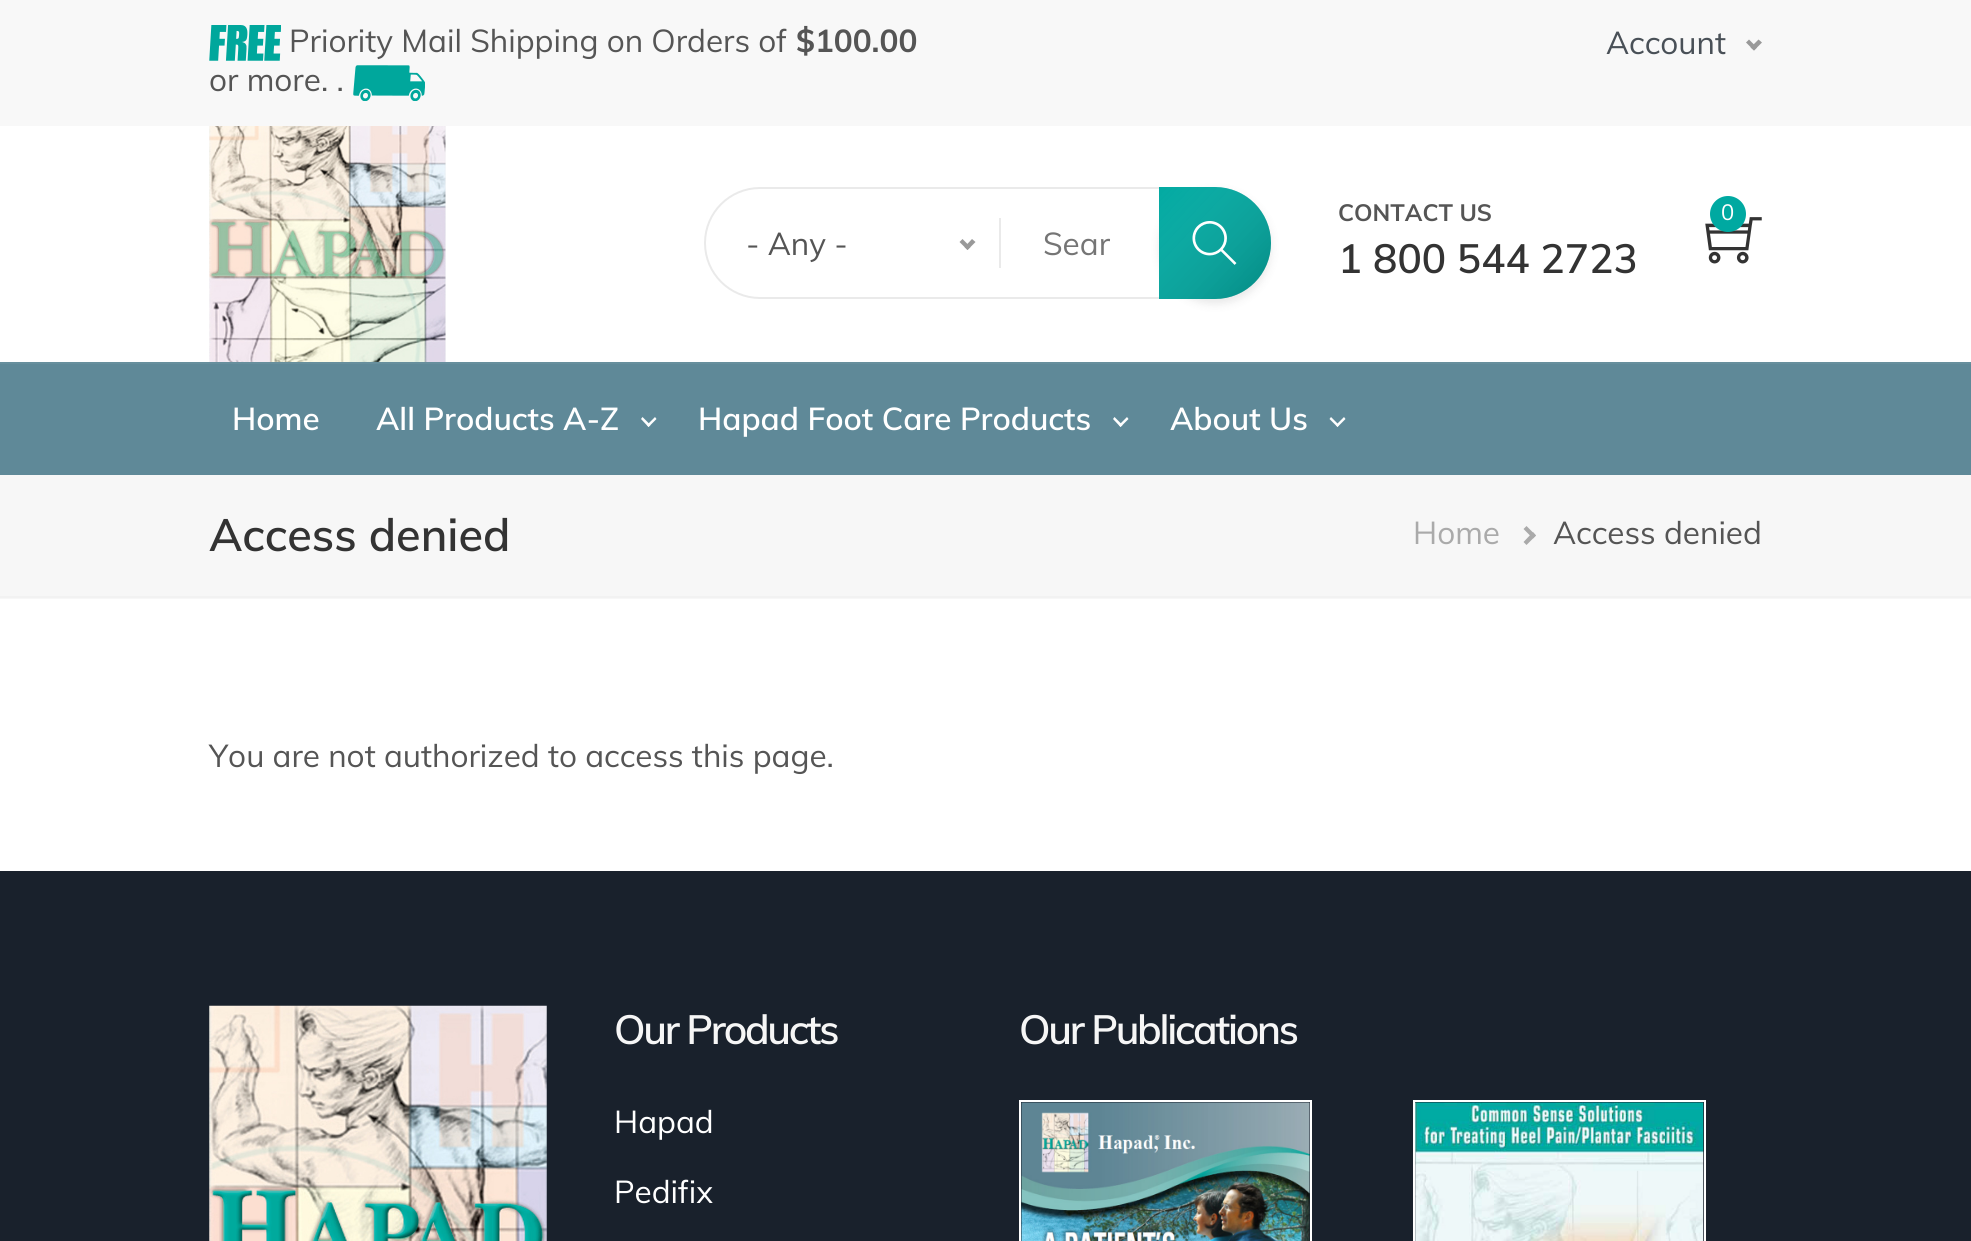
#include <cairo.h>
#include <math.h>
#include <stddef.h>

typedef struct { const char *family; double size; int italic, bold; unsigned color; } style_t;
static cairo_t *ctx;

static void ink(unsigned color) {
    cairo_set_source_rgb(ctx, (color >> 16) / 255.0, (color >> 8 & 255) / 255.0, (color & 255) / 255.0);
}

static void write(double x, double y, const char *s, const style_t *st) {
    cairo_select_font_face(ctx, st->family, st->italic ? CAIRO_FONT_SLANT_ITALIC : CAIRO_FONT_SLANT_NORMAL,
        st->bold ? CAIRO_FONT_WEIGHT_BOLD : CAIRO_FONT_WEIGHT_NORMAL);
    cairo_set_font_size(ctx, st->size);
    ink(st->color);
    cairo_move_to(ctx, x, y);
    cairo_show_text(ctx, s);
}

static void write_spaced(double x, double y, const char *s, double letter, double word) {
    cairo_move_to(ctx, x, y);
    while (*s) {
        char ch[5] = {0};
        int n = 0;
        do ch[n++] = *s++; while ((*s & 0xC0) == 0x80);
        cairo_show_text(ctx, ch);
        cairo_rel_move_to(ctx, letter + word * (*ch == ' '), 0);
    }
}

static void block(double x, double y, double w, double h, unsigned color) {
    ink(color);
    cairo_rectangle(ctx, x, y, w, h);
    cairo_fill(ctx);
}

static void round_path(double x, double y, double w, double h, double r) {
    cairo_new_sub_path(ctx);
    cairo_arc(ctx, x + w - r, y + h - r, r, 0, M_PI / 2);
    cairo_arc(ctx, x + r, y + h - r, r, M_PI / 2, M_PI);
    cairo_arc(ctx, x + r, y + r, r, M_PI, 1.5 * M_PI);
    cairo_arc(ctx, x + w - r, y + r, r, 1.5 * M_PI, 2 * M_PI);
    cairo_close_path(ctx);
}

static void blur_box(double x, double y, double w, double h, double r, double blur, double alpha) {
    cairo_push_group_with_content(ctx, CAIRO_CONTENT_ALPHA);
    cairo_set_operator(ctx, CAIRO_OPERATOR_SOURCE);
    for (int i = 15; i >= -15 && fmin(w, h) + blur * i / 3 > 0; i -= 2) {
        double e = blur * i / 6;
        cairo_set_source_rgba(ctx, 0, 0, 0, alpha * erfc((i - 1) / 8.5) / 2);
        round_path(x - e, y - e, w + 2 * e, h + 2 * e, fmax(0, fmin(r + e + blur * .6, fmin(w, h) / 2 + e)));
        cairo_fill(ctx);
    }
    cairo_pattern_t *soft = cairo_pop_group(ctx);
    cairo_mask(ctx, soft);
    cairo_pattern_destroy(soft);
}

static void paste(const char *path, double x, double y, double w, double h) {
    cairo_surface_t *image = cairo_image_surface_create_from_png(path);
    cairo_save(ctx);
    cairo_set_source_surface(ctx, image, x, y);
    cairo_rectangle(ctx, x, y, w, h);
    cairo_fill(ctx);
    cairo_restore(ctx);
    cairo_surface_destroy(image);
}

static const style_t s1 = {"Muli", 31.5, 0, 0, 0x555555};
static const style_t s2 = {"Muli", 31.5, 0, 1, 0x555555};
static const style_t s3 = {"Muli", 31.5, 0, 0, 0x495057};
static const style_t s4 = {"Muli", 31.5, 0, 0, 0x757575};
static const style_t s5 = {"Muli", 23.5, 0, 1, 0x555555};
static const style_t s6 = {"Muli SemiBold", 40.5, 0, 0, 0x333333};
static const style_t s7 = {"Muli", 22, 0, 0, 0xffffff};
static const style_t s8 = {"Muli SemiBold", 31.5, 0, 0, 0xffffff};
static const style_t s9 = {"Muli SemiBold", 45, 0, 0, 0x333333};
static const style_t s10 = {"Muli", 31.5, 0, 0, 0xaaaaaa};
static const style_t s11 = {"Muli", 31.5, 0, 0, 0xffffff};

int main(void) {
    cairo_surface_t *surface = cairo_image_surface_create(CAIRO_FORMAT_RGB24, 1971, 1241);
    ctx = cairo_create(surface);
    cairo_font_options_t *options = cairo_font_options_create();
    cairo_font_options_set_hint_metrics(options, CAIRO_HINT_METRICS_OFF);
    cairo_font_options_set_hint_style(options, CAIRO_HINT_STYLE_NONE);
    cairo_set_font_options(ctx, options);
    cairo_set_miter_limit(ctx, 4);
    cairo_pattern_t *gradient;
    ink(0xffffff);
    cairo_paint(ctx);
    block(0, 0, 1971, 126, 0xf8f8f8);
    paste("pic1.png", 209, 25, 72, 36);
    write(289, 52, "Priority Mail Shipping on Orders of", &s1);
    write(796, 52, "$100.00", &s2);
    write(209, 91, "or more. .", &s1);
    paste("pic2.png", 353, 65, 72, 36);
    write(1606, 54, "Account", &s3);
    ink(0x999999);
    cairo_new_path(ctx);
    cairo_move_to(ctx, 1758.5, 39.5);
    cairo_line_to(ctx, 1762, 42.5);
    cairo_line_to(ctx, 1754, 50.5);
    cairo_line_to(ctx, 1750.5, 47.5);
    cairo_close_path(ctx);
    cairo_fill(ctx);
    cairo_new_path(ctx);
    cairo_move_to(ctx, 1749, 39.5);
    cairo_line_to(ctx, 1757, 47.5);
    cairo_line_to(ctx, 1754, 50.5);
    cairo_line_to(ctx, 1746, 42.5);
    cairo_close_path(ctx);
    cairo_fill(ctx);
    paste("pic3.png", 209, 126, 237, 236);
    round_path(705, 188, 565, 110, 55);
    ink(0xeaeaea);
    cairo_stroke(ctx);
    write(746, 255, "- Any -", &s1);
    ink(0x999999);
    cairo_new_path(ctx);
    cairo_move_to(ctx, 972, 239);
    cairo_line_to(ctx, 975.5, 242);
    cairo_line_to(ctx, 967.5, 250);
    cairo_line_to(ctx, 964.5, 247);
    cairo_close_path(ctx);
    cairo_fill(ctx);
    cairo_new_path(ctx);
    cairo_move_to(ctx, 962.5, 239);
    cairo_line_to(ctx, 970.5, 247);
    cairo_line_to(ctx, 967.5, 250);
    cairo_line_to(ctx, 959.5, 242);
    cairo_close_path(ctx);
    cairo_fill(ctx);
    block(999, 218, 2, 50, 0xeaeaea);
    write(1043, 255, "Sear", &s4);
    ink(0x000000);
    blur_box(1159, 191, 112, 113, 56, 4.5, 0.09);
    ink(0x00a9a1);
    cairo_new_path(ctx);
    cairo_move_to(ctx, 1159, 187);
    cairo_line_to(ctx, 1215, 187);
    cairo_curve_to(ctx, 1246, 187, 1271, 212, 1271, 243);
    cairo_curve_to(ctx, 1271, 274, 1246, 299, 1215, 299);
    cairo_line_to(ctx, 1159, 299);
    cairo_close_path(ctx);
    cairo_fill(ctx);
    gradient = cairo_pattern_create_linear(1157, 189, 1273, 297);
    cairo_pattern_add_color_stop_rgba(gradient, 0, 1, 1, 1, 0.01);
    cairo_pattern_add_color_stop_rgba(gradient, 1, 0, 0, 0, 0.2);
    cairo_set_source(ctx, gradient);
    cairo_pattern_destroy(gradient);
    cairo_new_path(ctx);
    cairo_move_to(ctx, 1159, 187);
    cairo_line_to(ctx, 1215, 187);
    cairo_curve_to(ctx, 1246, 187, 1271, 212, 1271, 243);
    cairo_curve_to(ctx, 1271, 274, 1246, 299, 1215, 299);
    cairo_line_to(ctx, 1159, 299);
    cairo_close_path(ctx);
    cairo_fill(ctx);
    paste("pic4.png", 1192, 221, 45, 44);
    write(1338, 221, "CONTACT US", &s5);
    write(1338, 273, "1 800 544 2723", &s6);
    paste("pic5.png", 1705, 217, 57, 47);
    ink(0x00a9a1);
    cairo_arc(ctx, 1728, 214, 18, 0, 2 * M_PI);
    cairo_fill(ctx);
    write(1721, 220, "0", &s7);
    block(0, 364, 1971, 111, 0x5f8998);
    block(0, 362, 1971, 2, 0x678f9d);
    write(232, 430, "Home", &s8);
    write(376, 430, "All Products A-Z", &s8);
    ink(0xfefefe);
    cairo_new_path(ctx);
    cairo_move_to(ctx, 655, 417);
    cairo_line_to(ctx, 656.5, 419);
    cairo_line_to(ctx, 648.5, 427);
    cairo_line_to(ctx, 647, 425);
    cairo_close_path(ctx);
    cairo_fill(ctx);
    cairo_new_path(ctx);
    cairo_move_to(ctx, 642.5, 417);
    cairo_line_to(ctx, 650.5, 425);
    cairo_line_to(ctx, 648.5, 427);
    cairo_line_to(ctx, 641, 419);
    cairo_close_path(ctx);
    cairo_fill(ctx);
    write(698, 430, "Hapad Foot Care Products", &s8);
    ink(0xfefefe);
    cairo_new_path(ctx);
    cairo_move_to(ctx, 1127, 417);
    cairo_line_to(ctx, 1128.5, 419);
    cairo_line_to(ctx, 1120.5, 427);
    cairo_line_to(ctx, 1119, 425);
    cairo_close_path(ctx);
    cairo_fill(ctx);
    cairo_new_path(ctx);
    cairo_move_to(ctx, 1114.5, 417);
    cairo_line_to(ctx, 1122.5, 425);
    cairo_line_to(ctx, 1120.5, 427);
    cairo_line_to(ctx, 1113, 419);
    cairo_close_path(ctx);
    cairo_fill(ctx);
    write(1170, 430, "About Us", &s8);
    ink(0xfefefe);
    cairo_new_path(ctx);
    cairo_move_to(ctx, 1344, 417);
    cairo_line_to(ctx, 1345.5, 419);
    cairo_line_to(ctx, 1337.5, 427);
    cairo_line_to(ctx, 1336, 425);
    cairo_close_path(ctx);
    cairo_fill(ctx);
    cairo_new_path(ctx);
    cairo_move_to(ctx, 1331, 417);
    cairo_line_to(ctx, 1339, 425);
    cairo_line_to(ctx, 1337.5, 427);
    cairo_line_to(ctx, 1329.5, 419);
    cairo_close_path(ctx);
    cairo_fill(ctx);
    block(0, 475, 1971, 124, 0xf7f7f7);
    block(0, 596, 1971, 2, 0xf2f2f2);
    write(209, 551, "Access denied", &s9);
    write(1413, 544, "Home", &s10);
    cairo_new_path(ctx);
    cairo_move_to(ctx, 1523.5, 529);
    cairo_line_to(ctx, 1526.5, 526);
    cairo_line_to(ctx, 1536, 535.5);
    cairo_line_to(ctx, 1533, 538.5);
    cairo_close_path(ctx);
    cairo_fill(ctx);
    cairo_new_path(ctx);
    cairo_move_to(ctx, 1523.5, 542);
    cairo_line_to(ctx, 1533, 532);
    cairo_line_to(ctx, 1536, 535.5);
    cairo_line_to(ctx, 1526.5, 545);
    cairo_close_path(ctx);
    cairo_fill(ctx);
    write(1553, 544, "Access denied", &s1);
    write(209, 767, "You are not authorized to access this page.", &s1);
    block(0, 871, 1971, 370, 0x19212c);
    paste("pic6.png", 209, 1005, 338, 236);
    cairo_select_font_face(ctx, "Muli SemiBold", CAIRO_FONT_SLANT_NORMAL, CAIRO_FONT_WEIGHT_NORMAL);
    cairo_set_font_size(ctx, 40.5);
    ink(0xf6f6f6);
    write_spaced(614, 1044, "Our Products", -2.25, 0);
    write(614, 1133, "Hapad", &s11);
    write(614, 1203, "Pedifix", &s11);
    cairo_select_font_face(ctx, "Muli SemiBold", CAIRO_FONT_SLANT_NORMAL, CAIRO_FONT_WEIGHT_NORMAL);
    cairo_set_font_size(ctx, 40.5);
    ink(0xf6f6f6);
    write_spaced(1019, 1044, "Our Publications", -2.25, 0);
    cairo_rectangle(ctx, 1020, 1101, 291, 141);
    ink(0xffffff);
    cairo_stroke(ctx);
    paste("pic7.png", 1021, 1102, 289, 139);
    cairo_rectangle(ctx, 1414, 1101, 291, 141);
    cairo_stroke(ctx);
    paste("pic8.png", 1415, 1102, 289, 139);
    cairo_surface_write_to_png(surface, "screenshot.png");
    cairo_font_options_destroy(options);
    cairo_destroy(ctx);
    cairo_surface_destroy(surface);
    return 0;
}
